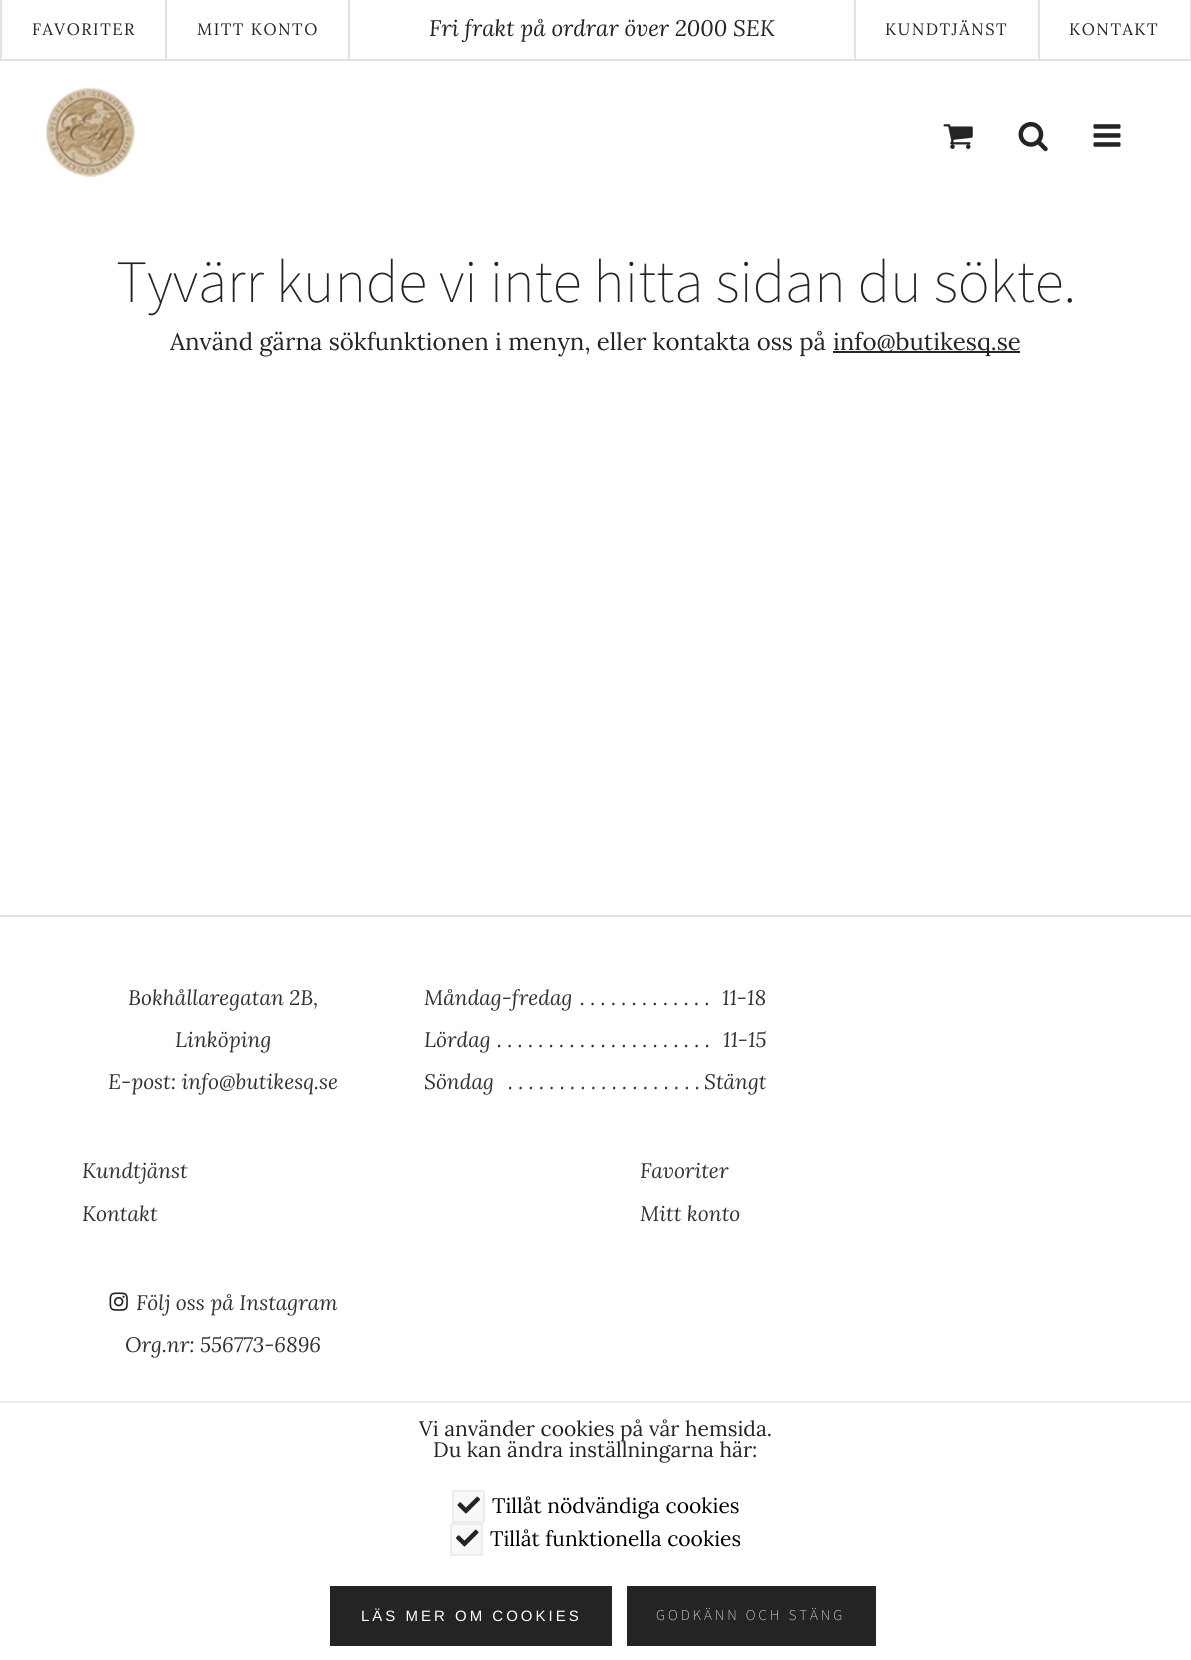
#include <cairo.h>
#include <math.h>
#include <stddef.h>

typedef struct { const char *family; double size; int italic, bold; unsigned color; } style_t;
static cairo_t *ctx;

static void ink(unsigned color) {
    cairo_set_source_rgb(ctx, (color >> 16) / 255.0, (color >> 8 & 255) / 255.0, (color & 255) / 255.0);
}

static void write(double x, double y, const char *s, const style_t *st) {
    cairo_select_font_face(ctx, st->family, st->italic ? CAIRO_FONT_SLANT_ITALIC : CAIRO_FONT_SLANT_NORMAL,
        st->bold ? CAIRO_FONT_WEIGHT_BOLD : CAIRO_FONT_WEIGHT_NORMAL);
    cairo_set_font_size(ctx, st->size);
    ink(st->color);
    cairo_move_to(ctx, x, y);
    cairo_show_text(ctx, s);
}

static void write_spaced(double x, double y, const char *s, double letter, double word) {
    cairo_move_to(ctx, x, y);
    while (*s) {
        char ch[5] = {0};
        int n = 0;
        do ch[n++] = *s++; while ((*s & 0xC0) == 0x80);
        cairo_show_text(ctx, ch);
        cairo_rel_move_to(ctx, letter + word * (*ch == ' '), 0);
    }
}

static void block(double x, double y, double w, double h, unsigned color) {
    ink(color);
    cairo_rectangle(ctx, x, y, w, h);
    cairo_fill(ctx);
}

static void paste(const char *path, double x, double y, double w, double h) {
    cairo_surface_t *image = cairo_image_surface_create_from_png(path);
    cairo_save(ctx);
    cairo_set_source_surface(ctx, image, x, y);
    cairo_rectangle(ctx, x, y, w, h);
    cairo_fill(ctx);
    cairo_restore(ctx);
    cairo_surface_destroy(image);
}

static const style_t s1 = {"Lora", 22.5, 1, 0, 0x222426};
static const style_t s2 = {"Source Sans 3 ExtraLight", 60, 0, 0, 0x222426};
static const style_t s3 = {"Lora", 24, 0, 0, 0x222426};
static const style_t s4 = {"Lora", 21, 1, 0, 0x333333};
static const style_t s5 = {"Lora", 21, 0, 0, 0x222426};
static const style_t s6 = {"Lora", 21, 0, 0, 0x000000};

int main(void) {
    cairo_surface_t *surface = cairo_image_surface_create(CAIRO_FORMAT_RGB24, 1191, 1660);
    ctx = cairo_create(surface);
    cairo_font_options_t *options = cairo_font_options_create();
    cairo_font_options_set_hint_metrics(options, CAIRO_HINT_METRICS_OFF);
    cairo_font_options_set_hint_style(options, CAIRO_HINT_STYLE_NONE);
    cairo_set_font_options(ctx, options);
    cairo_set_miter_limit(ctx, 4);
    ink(0xffffff);
    cairo_paint(ctx);
    block(0, 59, 1191, 2, 0xe2e2e2);
    block(0, 0, 2, 60, 0xe2e2e2);
    block(165, 0, 2, 60, 0xe2e2e2);
    cairo_select_font_face(ctx, "Lora", CAIRO_FONT_SLANT_NORMAL, CAIRO_FONT_WEIGHT_NORMAL);
    cairo_set_font_size(ctx, 16.5);
    ink(0x222426);
    write_spaced(32, 35, "FAVORITER", 1.5, 0);
    block(348, 0, 2, 60, 0xe2e2e2);
    ink(0x222426);
    write_spaced(197, 35, "MITT KONTO", 1.5, 0);
    write(429, 36, "Fri frakt på ordrar över 2000 SEK", &s1);
    block(854, 0, 2, 60, 0xe2e2e2);
    block(1038, 0, 2, 60, 0xe2e2e2);
    cairo_select_font_face(ctx, "Lora", CAIRO_FONT_SLANT_NORMAL, CAIRO_FONT_WEIGHT_NORMAL);
    cairo_set_font_size(ctx, 16.5);
    ink(0x222426);
    write_spaced(885, 35, "KUNDTJÄNST", 1.5, 0);
    block(1190, 0, 1, 60, 0xe2e2e2);
    ink(0x222426);
    write_spaced(1069, 35, "KONTAKT", 1.5, 0);
    paste("pic1.png", 46, 88, 89, 89);
    paste("pic2.png", 943, 124, 30, 25);
    paste("pic3.png", 1018, 122, 30, 30);
    paste("pic4.png", 1093, 124, 28, 23);
    write(116, 302, "Tyvärr kunde vi inte hitta sidan du sökte.", &s2);
    write(170, 350, "Använd gärna sökfunktionen i menyn, eller kontakta oss på", &s3);
    block(833, 351, 187, 2, 0x222426);
    write(833, 350, "info@butikesq.se", &s3);
    block(0, 915, 1191, 2, 0xe2e2e2);
    write(128, 1005, "Bokhållaregatan 2B,", &s4);
    write(175, 1047, "Linköping", &s4);
    write(108, 1089, "E-post: info@butikesq.se", &s4);
    write(424, 1005, "Måndag-fredag", &s4);
    write(580, 1005, ". . . . . . . . . . . . .", &s4);
    write(722, 1005, "11-18", &s4);
    write(424, 1047, "Lördag", &s4);
    write(497, 1047, ". . . . . . . . . . . . . . . . . . . . .", &s4);
    write(723, 1047, "11-15", &s4);
    write(424, 1089, "Söndag", &s4);
    write(508, 1089, ". . . . . . . . . . . . . . . . . . .", &s4);
    write(704, 1089, "Stängt", &s4);
    write(82, 1178, "Kundtjänst", &s4);
    write(82, 1221, "Kontakt", &s4);
    write(640, 1178, "Favoriter", &s4);
    write(640, 1221, "Mitt konto", &s4);
    paste("pic5.png", 109, 1292, 19, 19);
    write(136, 1310, "Följ oss på Instagram", &s4);
    write(125, 1352, "Org.nr: 556773-6896", &s4);
    block(0, 1401, 1191, 2, 0xededed);
    write(419, 1436, "Vi använder cookies på vår hemsida.", &s5);
    write(433, 1457, "Du kan ändra inställningarna här:", &s5);
    ink(0xf8f8f8);
    cairo_rectangle(ctx, 453, 1491, 31, 31);
    cairo_fill_preserve(ctx);
    ink(0xededed);
    cairo_stroke(ctx);
    paste("pic6.png", 457, 1496, 23, 18);
    write(492, 1513, "Tillåt nödvändiga cookies", &s6);
    ink(0xf8f8f8);
    cairo_rectangle(ctx, 451, 1524, 31, 31);
    cairo_fill_preserve(ctx);
    ink(0xededed);
    cairo_stroke(ctx);
    paste("pic7.png", 456, 1529, 23, 18);
    write(490, 1546, "Tillåt funktionella cookies", &s6);
    block(330, 1586, 282, 60, 0x222426);
    cairo_select_font_face(ctx, "Liberation Sans", CAIRO_FONT_SLANT_NORMAL, CAIRO_FONT_WEIGHT_NORMAL);
    cairo_set_font_size(ctx, 15);
    ink(0xffffff);
    write_spaced(361, 1621, "LÄS MER OM COOKIES", 3, 0);
    block(627, 1586, 249, 60, 0x222426);
    cairo_select_font_face(ctx, "Source Sans 3 ExtraLight", CAIRO_FONT_SLANT_NORMAL, CAIRO_FONT_WEIGHT_NORMAL);
    ink(0xffffff);
    write_spaced(656, 1620, "GODKÄNN OCH STÄNG", 3, 0);
    cairo_surface_write_to_png(surface, "screenshot.png");
    cairo_font_options_destroy(options);
    cairo_destroy(ctx);
    cairo_surface_destroy(surface);
    return 0;
}
